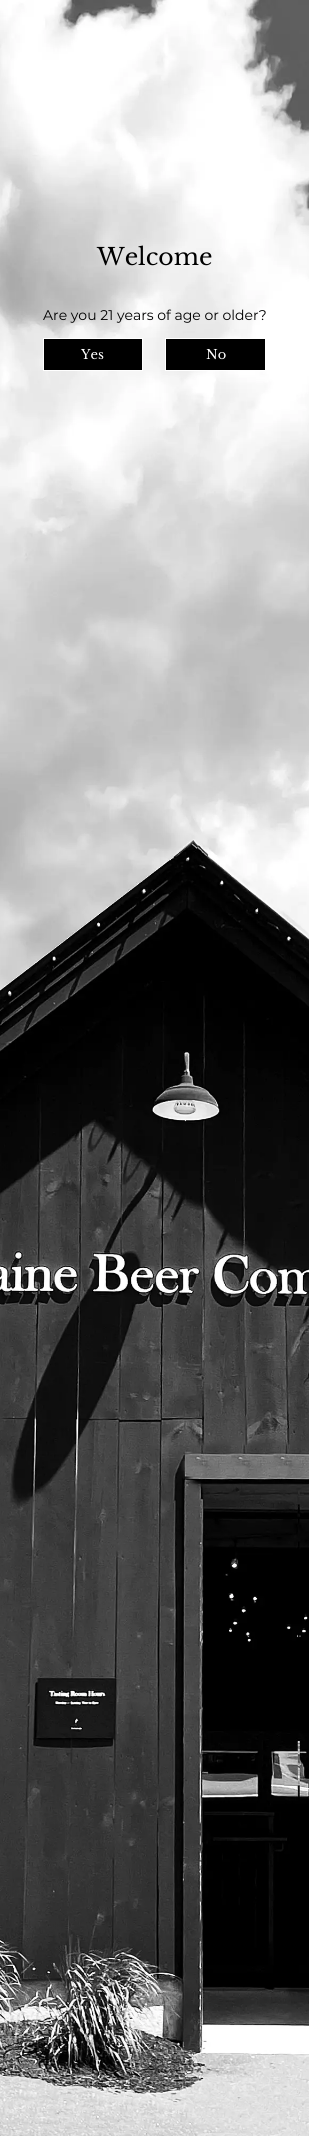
#include <cairo.h>
#include <math.h>
#include <stddef.h>

typedef struct { const char *family; double size; int italic, bold; unsigned color; } style_t;
static cairo_t *ctx;

static void ink(unsigned color) {
    cairo_set_source_rgb(ctx, (color >> 16) / 255.0, (color >> 8 & 255) / 255.0, (color & 255) / 255.0);
}

static void write(double x, double y, const char *s, const style_t *st) {
    cairo_select_font_face(ctx, st->family, st->italic ? CAIRO_FONT_SLANT_ITALIC : CAIRO_FONT_SLANT_NORMAL,
        st->bold ? CAIRO_FONT_WEIGHT_BOLD : CAIRO_FONT_WEIGHT_NORMAL);
    cairo_set_font_size(ctx, st->size);
    ink(st->color);
    cairo_move_to(ctx, x, y);
    cairo_show_text(ctx, s);
}

static void paste(const char *path, double x, double y, double w, double h) {
    cairo_surface_t *image = cairo_image_surface_create_from_png(path);
    cairo_save(ctx);
    cairo_set_source_surface(ctx, image, x, y);
    cairo_rectangle(ctx, x, y, w, h);
    cairo_fill(ctx);
    cairo_restore(ctx);
    cairo_surface_destroy(image);
}

static const style_t s1 = {"Libre Baskerville", 23.5, 0, 0, 0x000000};
static const style_t s2 = {"Montserrat", 14, 0, 0, 0x000000};
static const style_t s3 = {"Libre Baskerville", 13, 0, 0, 0xffffff};

int main(void) {
    cairo_surface_t *surface = cairo_image_surface_create(CAIRO_FORMAT_RGB24, 309, 2136);
    ctx = cairo_create(surface);
    cairo_font_options_t *options = cairo_font_options_create();
    cairo_font_options_set_hint_metrics(options, CAIRO_HINT_METRICS_OFF);
    cairo_font_options_set_hint_style(options, CAIRO_HINT_STYLE_NONE);
    cairo_set_font_options(ctx, options);
    cairo_set_miter_limit(ctx, 4);
    ink(0xffffff);
    cairo_paint(ctx);
    paste("pic1.png", 0, 0, 309, 2136);
    write(97, 265, "Welcome", &s1);
    write(43, 320, "Are you 21 years of age or older?", &s2);
    cairo_rectangle(ctx, 43.5, 338.5, 99, 32);
    cairo_fill_preserve(ctx);
    ink(0xffffff);
    cairo_set_line_width(ctx, 1);
    cairo_stroke(ctx);
    write(81, 359, "Yes", &s3);
    ink(0x000000);
    cairo_rectangle(ctx, 165.5, 338.5, 100, 32);
    cairo_fill_preserve(ctx);
    ink(0xffffff);
    cairo_stroke(ctx);
    write(206, 359, "No", &s3);
    cairo_surface_write_to_png(surface, "screenshot.png");
    cairo_font_options_destroy(options);
    cairo_destroy(ctx);
    cairo_surface_destroy(surface);
    return 0;
}
